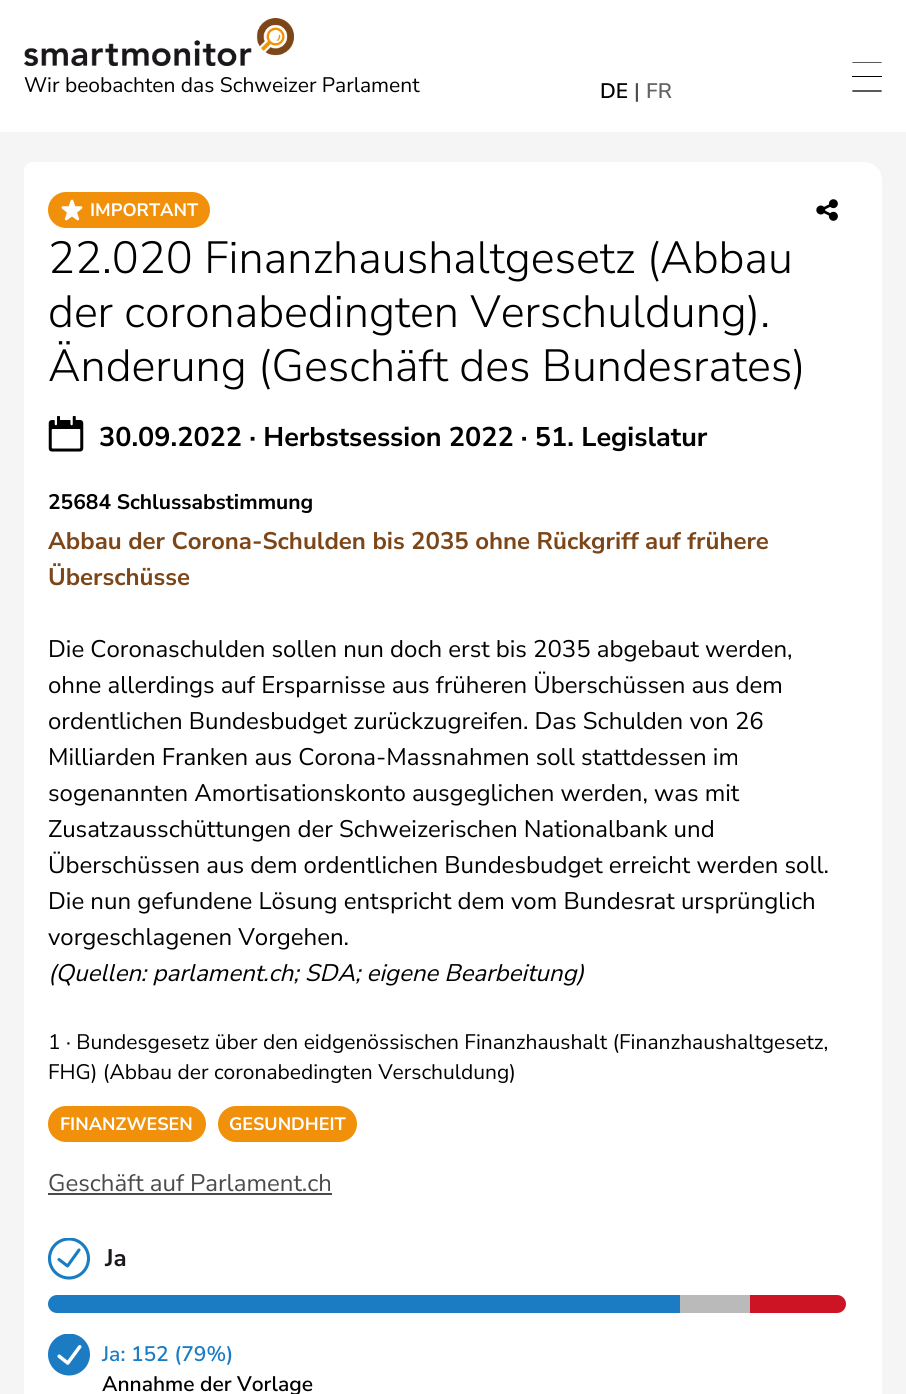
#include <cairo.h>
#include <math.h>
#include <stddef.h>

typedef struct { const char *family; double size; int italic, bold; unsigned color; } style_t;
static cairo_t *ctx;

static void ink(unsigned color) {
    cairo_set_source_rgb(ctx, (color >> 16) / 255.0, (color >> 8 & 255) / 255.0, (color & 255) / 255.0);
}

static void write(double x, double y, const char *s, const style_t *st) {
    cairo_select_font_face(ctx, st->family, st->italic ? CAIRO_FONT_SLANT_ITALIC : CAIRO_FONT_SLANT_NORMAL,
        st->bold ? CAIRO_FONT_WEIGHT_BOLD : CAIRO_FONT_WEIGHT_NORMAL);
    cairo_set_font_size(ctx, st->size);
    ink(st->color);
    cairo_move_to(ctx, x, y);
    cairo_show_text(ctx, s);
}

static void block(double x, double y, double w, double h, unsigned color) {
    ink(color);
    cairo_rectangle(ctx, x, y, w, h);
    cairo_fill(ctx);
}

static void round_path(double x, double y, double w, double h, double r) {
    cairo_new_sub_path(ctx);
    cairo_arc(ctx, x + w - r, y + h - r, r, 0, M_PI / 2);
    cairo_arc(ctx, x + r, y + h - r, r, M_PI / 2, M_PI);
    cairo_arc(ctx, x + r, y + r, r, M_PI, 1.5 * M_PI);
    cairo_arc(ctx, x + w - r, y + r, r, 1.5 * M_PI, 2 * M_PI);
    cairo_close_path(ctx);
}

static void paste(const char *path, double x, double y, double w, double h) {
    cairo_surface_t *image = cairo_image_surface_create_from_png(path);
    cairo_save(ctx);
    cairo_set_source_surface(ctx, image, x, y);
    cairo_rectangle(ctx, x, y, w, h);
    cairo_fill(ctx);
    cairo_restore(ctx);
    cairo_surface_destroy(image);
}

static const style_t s1 = {"Nunito Sans", 21, 0, 0, 0x000000};
static const style_t s2 = {"Nunito Sans SemiBold", 21, 0, 0, 0x000000};
static const style_t s3 = {"Nunito Sans SemiBold", 21, 0, 0, 0x4a4a4a};
static const style_t s4 = {"Nunito Sans SemiBold", 21, 0, 0, 0x646464};
static const style_t s5 = {"Nunito Sans", 18, 0, 1, 0xffffff};
static const style_t s6 = {"Nunito Sans Light", 45, 0, 0, 0x000000};
static const style_t s7 = {"Nunito Sans", 27, 0, 1, 0x000000};
static const style_t s8 = {"Nunito Sans", 21, 0, 1, 0x000000};
static const style_t s9 = {"Nunito Sans", 24, 0, 1, 0x7c4619};
static const style_t s10 = {"Nunito Sans", 24, 0, 0, 0x000000};
static const style_t s11 = {"Nunito Sans", 24, 1, 0, 0x000000};
static const style_t s12 = {"Nunito Sans", 24, 0, 0, 0x4a4a4a};
static const style_t s13 = {"Nunito Sans", 24, 0, 1, 0x1b171c};
static const style_t s14 = {"Nunito Sans SemiBold", 21, 0, 0, 0x1c7cc3};

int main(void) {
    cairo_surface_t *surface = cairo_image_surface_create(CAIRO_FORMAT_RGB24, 906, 1394);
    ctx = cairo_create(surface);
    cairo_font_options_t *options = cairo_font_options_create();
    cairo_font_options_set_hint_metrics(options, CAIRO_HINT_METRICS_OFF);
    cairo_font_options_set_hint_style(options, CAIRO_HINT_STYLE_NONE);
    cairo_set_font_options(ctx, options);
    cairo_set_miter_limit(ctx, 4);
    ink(0xf5f5f5);
    cairo_paint(ctx);
    block(0, 0, 906, 132, 0xffffff);
    paste("pic1.png", 24, 18, 270, 48);
    write(24, 92, "Wir beobachten das Schweizer Parlament", &s1);
    write(600, 98, "DE", &s2);
    write(634, 98, "|", &s3);
    write(646, 98, "FR", &s4);
    cairo_save(ctx);
    cairo_rectangle(ctx, 852, 62, 30, 30);
    cairo_clip(ctx);
    cairo_new_path(ctx);
    cairo_move_to(ctx, 881, 62);
    cairo_line_to(ctx, 853, 62);
    ink(0x000000);
    cairo_set_line_width(ctx, 1.3);
    cairo_set_line_cap(ctx, CAIRO_LINE_CAP_SQUARE);
    cairo_stroke(ctx);
    cairo_restore(ctx);
    block(852, 76, 30, 1, 0x000000);
    cairo_new_path(ctx);
    cairo_move_to(ctx, 881, 91);
    cairo_line_to(ctx, 853, 91);
    cairo_set_line_width(ctx, 1.3);
    cairo_set_line_cap(ctx, CAIRO_LINE_CAP_SQUARE);
    cairo_stroke(ctx);
    ink(0xffffff);
    cairo_new_path(ctx);
    cairo_move_to(ctx, 33, 162);
    cairo_line_to(ctx, 864, 162);
    cairo_curve_to(ctx, 874, 162, 882, 170, 882, 180);
    cairo_line_to(ctx, 882, 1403);
    cairo_curve_to(ctx, 882, 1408, 878, 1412, 873, 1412);
    cairo_line_to(ctx, 42, 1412);
    cairo_curve_to(ctx, 32, 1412, 24, 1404, 24, 1394);
    cairo_line_to(ctx, 24, 171);
    cairo_curve_to(ctx, 24, 166, 28, 162, 33, 162);
    cairo_close_path(ctx);
    cairo_fill(ctx);
    ink(0xf1910b);
    round_path(48, 192, 162, 36, 18);
    cairo_fill(ctx);
    paste("pic2.png", 61, 199, 22, 22);
    write(90, 216, "IMPORTANT", &s5);
    paste("pic3.png", 816, 199, 22, 22);
    write(48, 273, "22.020 Finanzhaushaltgesetz (Abbau", &s6);
    write(48, 327, "der coronabedingten Verschuldung).", &s6);
    write(48, 381, "Änderung (Geschäft des Bundesrates)", &s6);
    paste("pic4.png", 48, 416, 36, 36);
    write(99, 446, "30.09.2022 · Herbstsession 2022 · 51. Legislatur", &s7);
    write(48, 509, "25684 Schlussabstimmung", &s8);
    write(48, 549, "Abbau der Corona-Schulden bis 2035 ohne Rückgriff auf frühere", &s9);
    write(48, 585, "Überschüsse", &s9);
    write(48, 657, "Die Coronaschulden sollen nun doch erst bis 2035 abgebaut werden,", &s10);
    write(48, 693, "ohne allerdings auf Ersparnisse aus früheren Überschüssen aus dem", &s10);
    write(48, 729, "ordentlichen Bundesbudget zurückzugreifen. Das Schulden von 26", &s10);
    write(48, 765, "Milliarden Franken aus Corona-Massnahmen soll stattdessen im", &s10);
    write(48, 801, "sogenannten Amortisationskonto ausgeglichen werden, was mit", &s10);
    write(48, 837, "Zusatzausschüttungen der Schweizerischen Nationalbank und", &s10);
    write(48, 873, "Überschüssen aus dem ordentlichen Bundesbudget erreicht werden soll.", &s10);
    write(48, 909, "Die nun gefundene Lösung entspricht dem vom Bundesrat ursprünglich", &s10);
    write(48, 945, "vorgeschlagenen Vorgehen.", &s10);
    write(48, 981, "(Quellen: parlament.ch; SDA; eigene Bearbeitung)", &s11);
    write(48, 1049, "1 · Bundesgesetz über den eidgenössischen Finanzhaushalt (Finanzhaushaltgesetz,", &s1);
    write(48, 1079, "FHG) (Abbau der coronabedingten Verschuldung)", &s1);
    ink(0xf1910b);
    round_path(48, 1106, 158, 36, 18);
    cairo_fill(ctx);
    write(60, 1130, "FINANZWESEN", &s5);
    ink(0xf1910b);
    round_path(218, 1106, 139, 36, 18);
    cairo_fill(ctx);
    write(229, 1130, "GESUNDHEIT", &s5);
    write(48, 1191, "Geschäft auf Parlament.ch", &s12);
    block(48, 1193, 284, 2, 0x4a4a4a);
    cairo_save(ctx);
    cairo_rectangle(ctx, 48, 1238, 42, 42);
    cairo_clip(ctx);
    cairo_arc(ctx, 69, 1258.5, 19.5, 0, 2 * M_PI);
    ink(0x1c7cc3);
    cairo_set_line_width(ctx, 3.1);
    cairo_set_line_cap(ctx, CAIRO_LINE_CAP_BUTT);
    cairo_stroke(ctx);
    cairo_restore(ctx);
    cairo_new_path(ctx);
    cairo_move_to(ctx, 79, 1250);
    cairo_line_to(ctx, 67.5, 1266);
    cairo_line_to(ctx, 59, 1259.5);
    ink(0x1c7cc3);
    cairo_set_line_width(ctx, 3.1);
    cairo_set_line_cap(ctx, CAIRO_LINE_CAP_ROUND);
    cairo_set_line_join(ctx, CAIRO_LINE_JOIN_ROUND);
    cairo_stroke(ctx);
    write(105, 1266, "Ja", &s13);
    ink(0x1c7cc3);
    cairo_new_path(ctx);
    cairo_move_to(ctx, 57, 1295);
    cairo_line_to(ctx, 680, 1295);
    cairo_line_to(ctx, 680, 1313);
    cairo_line_to(ctx, 57, 1313);
    cairo_curve_to(ctx, 52, 1313, 48, 1309, 48, 1304);
    cairo_curve_to(ctx, 48, 1299, 52, 1295, 57, 1295);
    cairo_close_path(ctx);
    cairo_fill(ctx);
    block(680, 1295, 70, 18, 0xbababa);
    ink(0xcc1424);
    cairo_new_path(ctx);
    cairo_move_to(ctx, 750, 1295);
    cairo_line_to(ctx, 837, 1295);
    cairo_curve_to(ctx, 842, 1295, 846, 1299, 846, 1304);
    cairo_curve_to(ctx, 846, 1309, 842, 1313, 837, 1313);
    cairo_line_to(ctx, 750, 1313);
    cairo_close_path(ctx);
    cairo_fill(ctx);
    paste("pic5.png", 48, 1334, 42, 42);
    write(102, 1361, "Ja: 152 (79%)", &s14);
    write(102, 1391, "Annahme der Vorlage", &s2);
    cairo_surface_write_to_png(surface, "screenshot.png");
    cairo_font_options_destroy(options);
    cairo_destroy(ctx);
    cairo_surface_destroy(surface);
    return 0;
}
